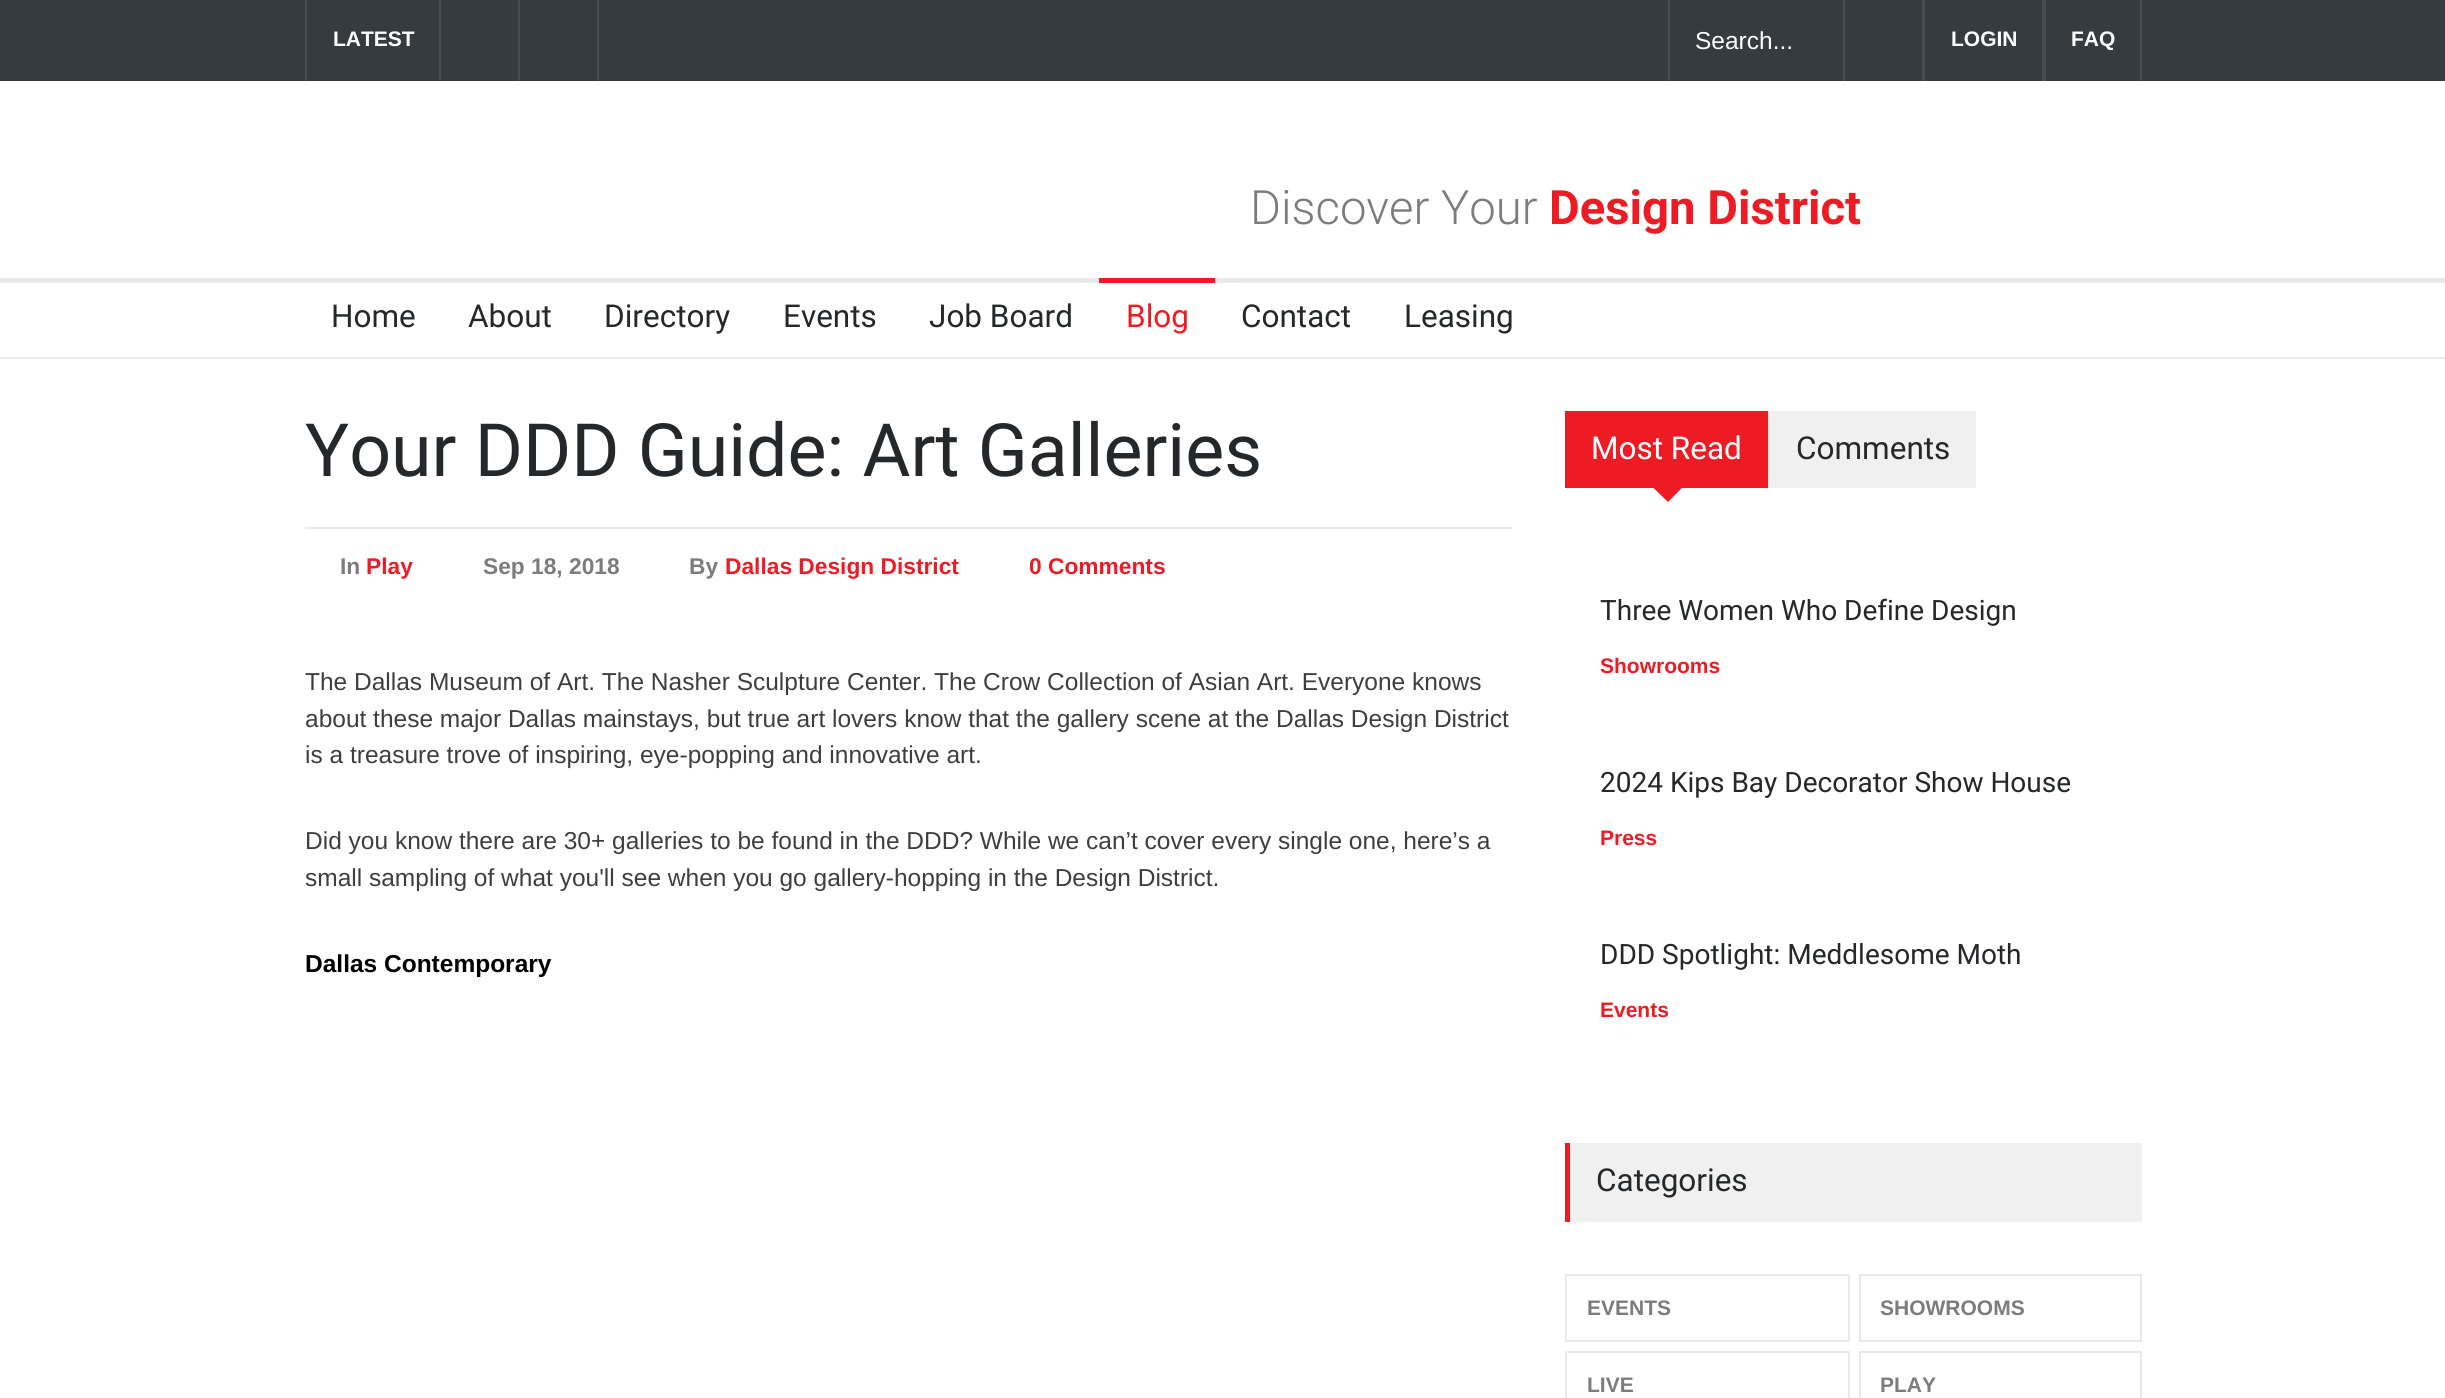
#include <cairo.h>
#include <math.h>
#include <stddef.h>

typedef struct { const char *family; double size; int italic, bold; unsigned color; } style_t;
static cairo_t *ctx;

static void ink(unsigned color) {
    cairo_set_source_rgb(ctx, (color >> 16) / 255.0, (color >> 8 & 255) / 255.0, (color & 255) / 255.0);
}

static void write(double x, double y, const char *s, const style_t *st) {
    cairo_select_font_face(ctx, st->family, st->italic ? CAIRO_FONT_SLANT_ITALIC : CAIRO_FONT_SLANT_NORMAL,
        st->bold ? CAIRO_FONT_WEIGHT_BOLD : CAIRO_FONT_WEIGHT_NORMAL);
    cairo_set_font_size(ctx, st->size);
    ink(st->color);
    cairo_move_to(ctx, x, y);
    cairo_show_text(ctx, s);
}

static void block(double x, double y, double w, double h, unsigned color) {
    ink(color);
    cairo_rectangle(ctx, x, y, w, h);
    cairo_fill(ctx);
}

static const style_t s1 = {"Liberation Sans", 21, 0, 1, 0xffffff};
static const style_t s2 = {"Liberation Sans", 24.5, 0, 0, 0xffffff};
static const style_t s3 = {"Roboto Light", 47.25, 0, 0, 0x7c7c7c};
static const style_t s4 = {"Roboto", 47.25, 0, 1, 0xed1c24};
static const style_t s5 = {"Roboto", 31.5, 0, 0, 0x25282a};
static const style_t s6 = {"Roboto", 31.5, 0, 0, 0xed1c24};
static const style_t s7 = {"Roboto", 73.5, 0, 0, 0x25282a};
static const style_t s8 = {"Liberation Sans", 22.75, 0, 1, 0x7c7c7c};
static const style_t s9 = {"Liberation Sans", 22.75, 0, 1, 0xed1c24};
static const style_t s10 = {"Liberation Sans", 24.5, 0, 0, 0x3e3e3e};
static const style_t s11 = {"Liberation Sans", 24.5, 0, 1, 0x000000};
static const style_t s12 = {"Roboto", 31.5, 0, 0, 0xffffff};
static const style_t s13 = {"Roboto", 28, 0, 0, 0x25282a};
static const style_t s14 = {"Liberation Sans", 21, 0, 1, 0xed1c24};
static const style_t s15 = {"Liberation Sans", 21, 0, 1, 0x7c7c7c};

int main(void) {
    cairo_surface_t *surface = cairo_image_surface_create(CAIRO_FORMAT_RGB24, 2445, 1398);
    ctx = cairo_create(surface);
    cairo_font_options_t *options = cairo_font_options_create();
    cairo_font_options_set_hint_metrics(options, CAIRO_HINT_METRICS_OFF);
    cairo_font_options_set_hint_style(options, CAIRO_HINT_STYLE_NONE);
    cairo_set_font_options(ctx, options);
    cairo_set_miter_limit(ctx, 4);
    ink(0xffffff);
    cairo_paint(ctx);
    block(0, 0, 2445, 81, 0x363b40);
    block(439, 0, 2, 81, 0x464d53);
    block(305, 0, 2, 81, 0x464d53);
    write(333, 46, "LATEST", &s1);
    block(518, 0, 2, 81, 0x464d53);
    block(597, 0, 2, 81, 0x464d53);
    block(1668, 0, 2, 81, 0x464d53);
    block(1843, 0, 2, 81, 0x464d53);
    write(1695, 49, "Search...", &s2);
    block(2042, 0, 4, 81, 0x464d53);
    block(1922, 0, 3, 81, 0x464d53);
    write(1951, 46, "LOGIN", &s1);
    block(2140, 0, 2, 81, 0x464d53);
    write(2071, 46, "FAQ", &s1);
    write(1250, 224, "Discover Your", &s3);
    write(1549, 224, "Design District", &s4);
    block(0, 278, 2445, 5, 0xe9e9e9);
    block(0, 357, 2445, 2, 0xe9e9e9);
    write(331, 327, "Home", &s5);
    write(468, 327, "About", &s5);
    write(604, 327, "Directory", &s5);
    write(783, 327, "Events", &s5);
    write(929, 327, "Job Board", &s5);
    block(1099, 278, 116, 5, 0xed1c24);
    write(1126, 327, "Blog", &s6);
    write(1241, 327, "Contact", &s5);
    write(1404, 327, "Leasing", &s5);
    write(305, 476, "Your DDD Guide: Art Galleries", &s7);
    block(305, 527, 1207, 2, 0xe9e9e9);
    write(340, 574, "In", &s8);
    write(366, 574, "Play", &s9);
    write(483, 574, "Sep 18, 2018", &s8);
    write(689, 574, "By", &s8);
    write(725, 574, "Dallas Design District", &s9);
    write(1029, 574, "0 Comments", &s9);
    write(305, 690, "The Dallas Museum of Art. The Nasher Sculpture Center. The Crow Collection of Asian Art. Everyone knows", &s10);
    write(305, 727, "about these major Dallas mainstays, but true art lovers know that the gallery scene at the Dallas Design District", &s10);
    write(305, 763, "is a treasure trove of inspiring, eye-popping and innovative art.", &s10);
    write(305, 849, "Did you know there are 30+ galleries to be found in the DDD? While we can’t cover every single one, here’s a", &s10);
    write(305, 886, "small sampling of what you'll see when you go gallery-hopping in the Design District.", &s10);
    write(305, 972, "Dallas Contemporary", &s11);
    block(1565, 411, 203, 77, 0xed1c24);
    block(1768, 411, 1, 77, 0xe0e0e0);
    write(1591, 459, "Most Read", &s12);
    ink(0xed1c24);
    cairo_new_path(ctx);
    cairo_move_to(ctx, 1652, 486.5);
    cairo_line_to(ctx, 1683.5, 486.5);
    cairo_line_to(ctx, 1668, 502);
    cairo_close_path(ctx);
    cairo_fill(ctx);
    block(1769, 411, 207, 77, 0xf0f0f0);
    write(1796, 459, "Comments", &s5);
    write(1600, 620, "Three Women Who Define Design", &s13);
    write(1600, 673, "Showrooms", &s14);
    write(1600, 792, "2024 Kips Bay Decorator Show House", &s13);
    write(1600, 845, "Press", &s14);
    write(1600, 964, "DDD Spotlight: Meddlesome Moth", &s13);
    write(1600, 1017, "Events", &s14);
    block(1570, 1143, 572, 79, 0xf0f0f0);
    block(1565, 1143, 5, 79, 0xed1c24);
    write(1596, 1191, "Categories", &s5);
    cairo_rectangle(ctx, 1566, 1275, 283, 66);
    ink(0xe9e9e9);
    cairo_stroke(ctx);
    write(1587, 1315, "EVENTS", &s15);
    cairo_rectangle(ctx, 1860, 1275, 281, 66);
    ink(0xe9e9e9);
    cairo_stroke(ctx);
    write(1880, 1315, "SHOWROOMS", &s15);
    cairo_rectangle(ctx, 1566, 1352, 283, 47);
    ink(0xe9e9e9);
    cairo_stroke(ctx);
    write(1587, 1392, "LIVE", &s15);
    cairo_rectangle(ctx, 1860, 1352, 281, 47);
    ink(0xe9e9e9);
    cairo_stroke(ctx);
    write(1880, 1392, "PLAY", &s15);
    cairo_surface_write_to_png(surface, "screenshot.png");
    cairo_font_options_destroy(options);
    cairo_destroy(ctx);
    cairo_surface_destroy(surface);
    return 0;
}
